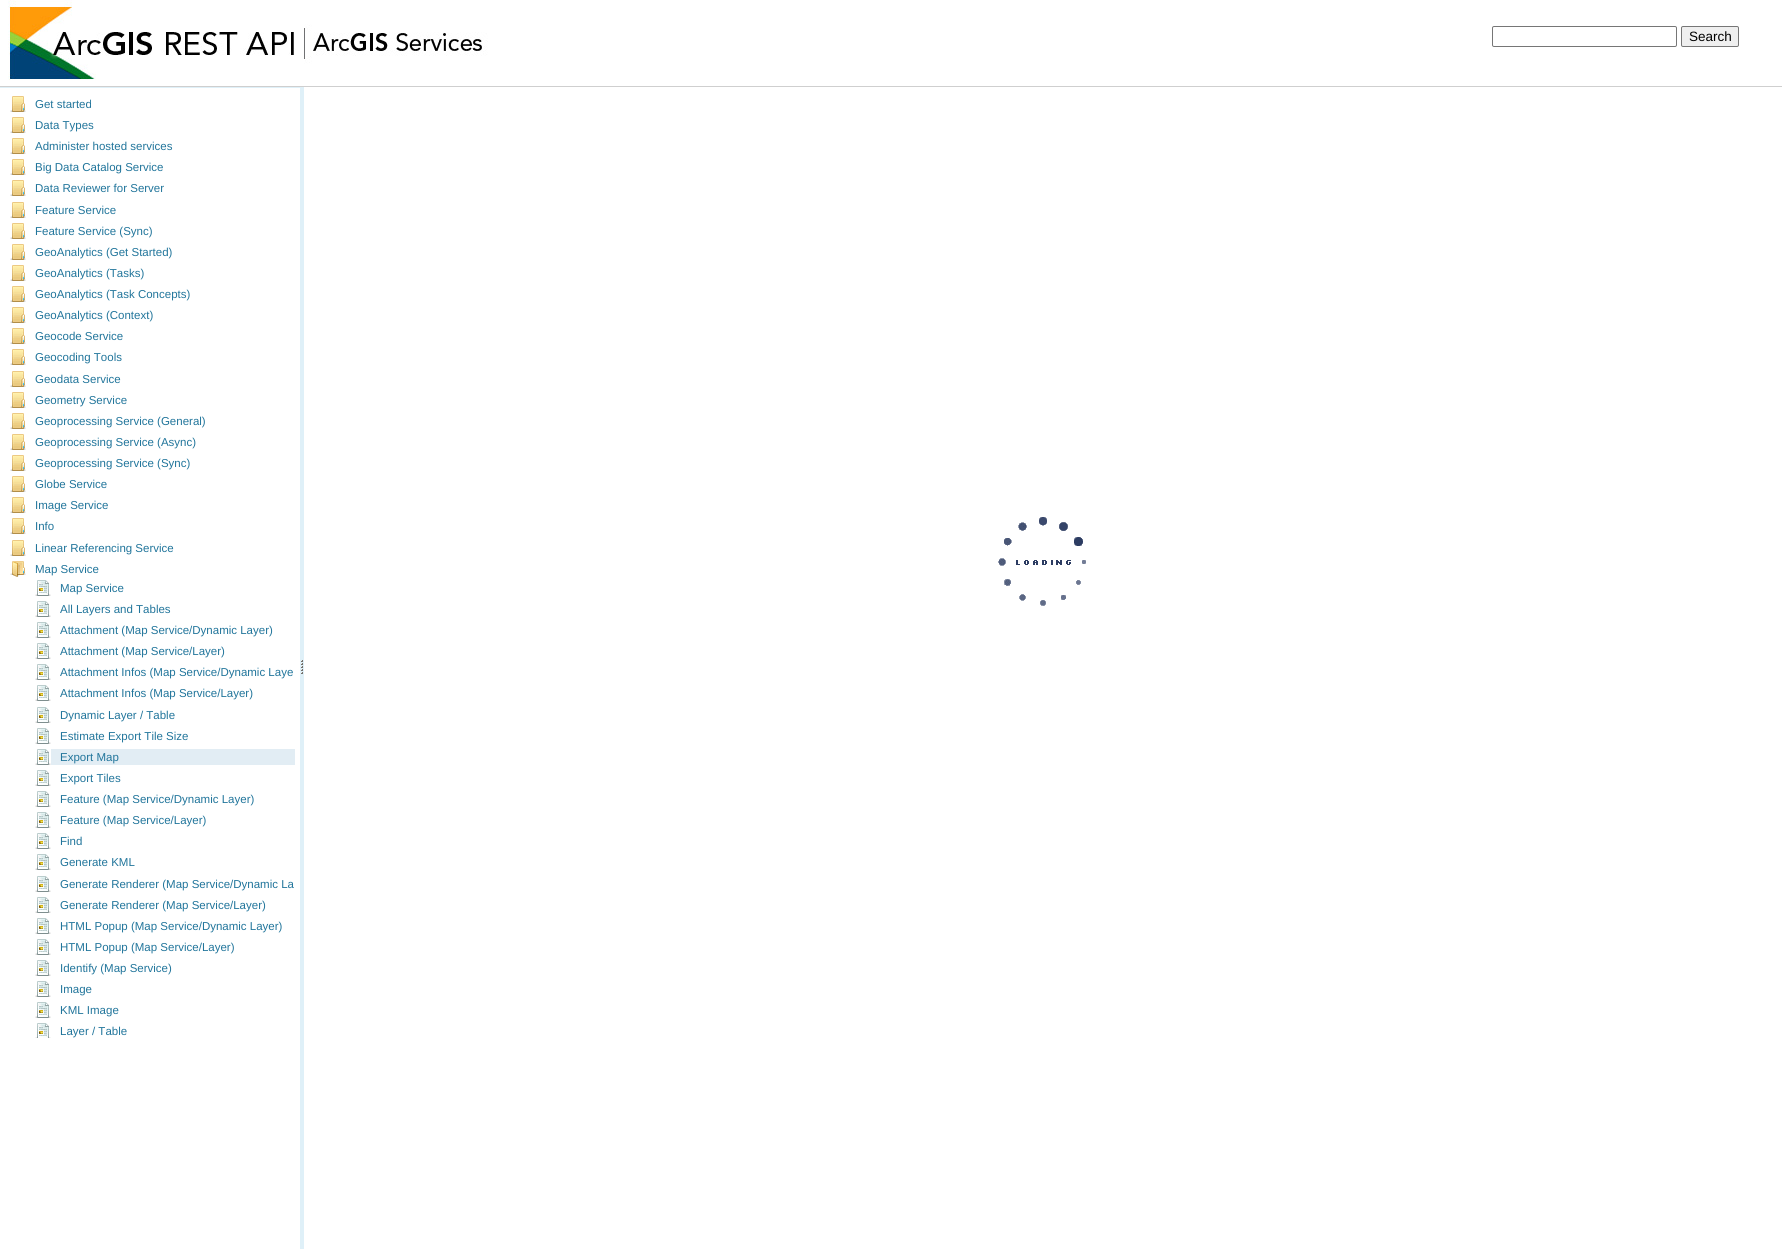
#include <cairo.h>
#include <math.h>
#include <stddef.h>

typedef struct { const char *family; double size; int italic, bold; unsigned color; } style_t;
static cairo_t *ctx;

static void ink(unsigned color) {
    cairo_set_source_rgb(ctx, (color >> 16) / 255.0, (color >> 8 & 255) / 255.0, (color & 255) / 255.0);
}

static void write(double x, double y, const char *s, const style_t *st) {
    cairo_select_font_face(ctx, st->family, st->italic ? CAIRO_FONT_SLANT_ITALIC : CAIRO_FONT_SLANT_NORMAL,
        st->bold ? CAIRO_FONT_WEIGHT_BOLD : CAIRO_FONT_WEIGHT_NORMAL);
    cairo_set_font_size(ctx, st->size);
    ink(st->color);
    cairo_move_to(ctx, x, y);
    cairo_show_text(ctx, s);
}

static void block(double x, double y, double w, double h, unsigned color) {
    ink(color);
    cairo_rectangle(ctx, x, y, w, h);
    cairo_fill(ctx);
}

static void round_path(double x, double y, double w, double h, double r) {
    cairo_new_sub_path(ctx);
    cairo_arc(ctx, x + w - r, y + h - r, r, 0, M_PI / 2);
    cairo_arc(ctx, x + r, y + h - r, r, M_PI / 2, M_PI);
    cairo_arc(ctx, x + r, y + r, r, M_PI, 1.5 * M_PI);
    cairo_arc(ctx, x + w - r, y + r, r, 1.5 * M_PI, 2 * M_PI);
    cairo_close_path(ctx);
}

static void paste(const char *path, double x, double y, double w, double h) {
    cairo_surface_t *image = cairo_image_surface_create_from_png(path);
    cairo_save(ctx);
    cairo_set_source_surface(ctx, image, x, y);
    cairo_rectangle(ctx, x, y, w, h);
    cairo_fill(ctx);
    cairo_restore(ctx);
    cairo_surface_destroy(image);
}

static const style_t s1 = {"Liberation Sans", 13.5, 0, 0, 0x000000};
static const style_t s2 = {"Liberation Sans", 11.5, 0, 0, 0x21759b};

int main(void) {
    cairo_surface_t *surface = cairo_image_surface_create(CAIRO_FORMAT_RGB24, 1782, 1249);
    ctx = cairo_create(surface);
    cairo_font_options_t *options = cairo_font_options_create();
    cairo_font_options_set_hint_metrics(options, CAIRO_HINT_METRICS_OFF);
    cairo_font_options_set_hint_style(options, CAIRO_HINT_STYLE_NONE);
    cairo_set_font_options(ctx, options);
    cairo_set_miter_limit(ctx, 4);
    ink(0xffffff);
    cairo_paint(ctx);
    paste("pic1.png", 8, 0, 480, 80);
    round_path(1492.5, 26.5, 184, 20, 1.5);
    ink(0x767676);
    cairo_set_line_width(ctx, 1);
    cairo_stroke(ctx);
    ink(0xefefef);
    round_path(1681.5, 26.5, 57, 20, 1.5);
    cairo_fill_preserve(ctx);
    ink(0x767676);
    cairo_stroke(ctx);
    write(1689, 41, "Search", &s1);
    block(0, 86, 1782, 1, 0xcfcfcf);
    block(0, 87, 300, 1, 0xdff0f8);
    paste("pic2.png", 10, 96, 16, 16);
    write(35, 108, "Get started", &s2);
    paste("pic2.png", 10, 117, 16, 16);
    write(35, 129, "Data Types", &s2);
    paste("pic2.png", 10, 138, 16, 16);
    write(35, 150, "Administer hosted services", &s2);
    paste("pic2.png", 10, 159, 16, 16);
    write(35, 171, "Big Data Catalog Service", &s2);
    paste("pic2.png", 10, 180, 16, 16);
    write(35, 192, "Data Reviewer for Server", &s2);
    paste("pic2.png", 10, 202, 16, 16);
    write(35, 214, "Feature Service", &s2);
    paste("pic2.png", 10, 223, 16, 16);
    write(35, 235, "Feature Service (Sync)", &s2);
    paste("pic2.png", 10, 244, 16, 16);
    write(35, 256, "GeoAnalytics (Get Started)", &s2);
    paste("pic2.png", 10, 265, 16, 16);
    write(35, 277, "GeoAnalytics (Tasks)", &s2);
    paste("pic2.png", 10, 286, 16, 16);
    write(35, 298, "GeoAnalytics (Task Concepts)", &s2);
    paste("pic2.png", 10, 307, 16, 16);
    write(35, 319, "GeoAnalytics (Context)", &s2);
    paste("pic2.png", 10, 328, 16, 16);
    write(35, 340, "Geocode Service", &s2);
    paste("pic2.png", 10, 349, 16, 16);
    write(35, 361, "Geocoding Tools", &s2);
    paste("pic2.png", 10, 371, 16, 16);
    write(35, 383, "Geodata Service", &s2);
    paste("pic2.png", 10, 392, 16, 16);
    write(35, 404, "Geometry Service", &s2);
    paste("pic2.png", 10, 413, 16, 16);
    write(35, 425, "Geoprocessing Service (General)", &s2);
    paste("pic2.png", 10, 434, 16, 16);
    write(35, 446, "Geoprocessing Service (Async)", &s2);
    paste("pic2.png", 10, 455, 16, 16);
    write(35, 467, "Geoprocessing Service (Sync)", &s2);
    paste("pic2.png", 10, 476, 16, 16);
    write(35, 488, "Globe Service", &s2);
    paste("pic2.png", 10, 497, 16, 16);
    write(35, 509, "Image Service", &s2);
    paste("pic2.png", 10, 518, 16, 16);
    write(35, 530, "Info", &s2);
    paste("pic2.png", 10, 540, 16, 16);
    write(35, 552, "Linear Referencing Service", &s2);
    paste("pic3.png", 10, 561, 16, 16);
    write(35, 573, "Map Service", &s2);
    paste("pic4.png", 35, 580, 16, 16);
    write(60, 592, "Map Service", &s2);
    paste("pic4.png", 35, 601, 16, 16);
    write(60, 613, "All Layers and Tables", &s2);
    paste("pic4.png", 35, 622, 16, 16);
    write(60, 634, "Attachment (Map Service/Dynamic Layer)", &s2);
    paste("pic4.png", 35, 643, 16, 16);
    write(60, 655, "Attachment (Map Service/Layer)", &s2);
    paste("pic4.png", 35, 664, 16, 16);
    write(60, 676, "Attachment Infos (Map Service/Dynamic Laye", &s2);
    paste("pic4.png", 35, 685, 16, 16);
    write(60, 697, "Attachment Infos (Map Service/Layer)", &s2);
    paste("pic4.png", 35, 707, 16, 16);
    write(60, 719, "Dynamic Layer / Table", &s2);
    paste("pic4.png", 35, 728, 16, 16);
    write(60, 740, "Estimate Export Tile Size", &s2);
    block(51, 749, 244, 16, 0xe2edf4);
    paste("pic4.png", 35, 749, 16, 16);
    write(60, 761, "Export Map", &s2);
    paste("pic4.png", 35, 770, 16, 16);
    write(60, 782, "Export Tiles", &s2);
    paste("pic4.png", 35, 791, 16, 16);
    write(60, 803, "Feature (Map Service/Dynamic Layer)", &s2);
    paste("pic4.png", 35, 812, 16, 16);
    write(60, 824, "Feature (Map Service/Layer)", &s2);
    paste("pic4.png", 35, 833, 16, 16);
    write(60, 845, "Find", &s2);
    paste("pic4.png", 35, 854, 16, 16);
    write(60, 866, "Generate KML", &s2);
    paste("pic4.png", 35, 876, 16, 16);
    write(60, 888, "Generate Renderer (Map Service/Dynamic La", &s2);
    paste("pic4.png", 35, 897, 16, 16);
    write(60, 909, "Generate Renderer (Map Service/Layer)", &s2);
    paste("pic4.png", 35, 918, 16, 16);
    write(60, 930, "HTML Popup (Map Service/Dynamic Layer)", &s2);
    paste("pic4.png", 35, 939, 16, 16);
    write(60, 951, "HTML Popup (Map Service/Layer)", &s2);
    paste("pic4.png", 35, 960, 16, 16);
    write(60, 972, "Identify (Map Service)", &s2);
    paste("pic4.png", 35, 981, 16, 16);
    write(60, 993, "Image", &s2);
    paste("pic4.png", 35, 1002, 16, 16);
    write(60, 1014, "KML Image", &s2);
    paste("pic5.png", 35, 1023, 16, 15);
    write(60, 1035, "Layer / Table", &s2);
    block(300, 87, 4, 1162, 0xdff0f8);
    paste("pic6.png", 301, 660, 2, 14);
    paste("pic7.png", 998, 517, 88, 89);
    cairo_surface_write_to_png(surface, "screenshot.png");
    cairo_font_options_destroy(options);
    cairo_destroy(ctx);
    cairo_surface_destroy(surface);
    return 0;
}
